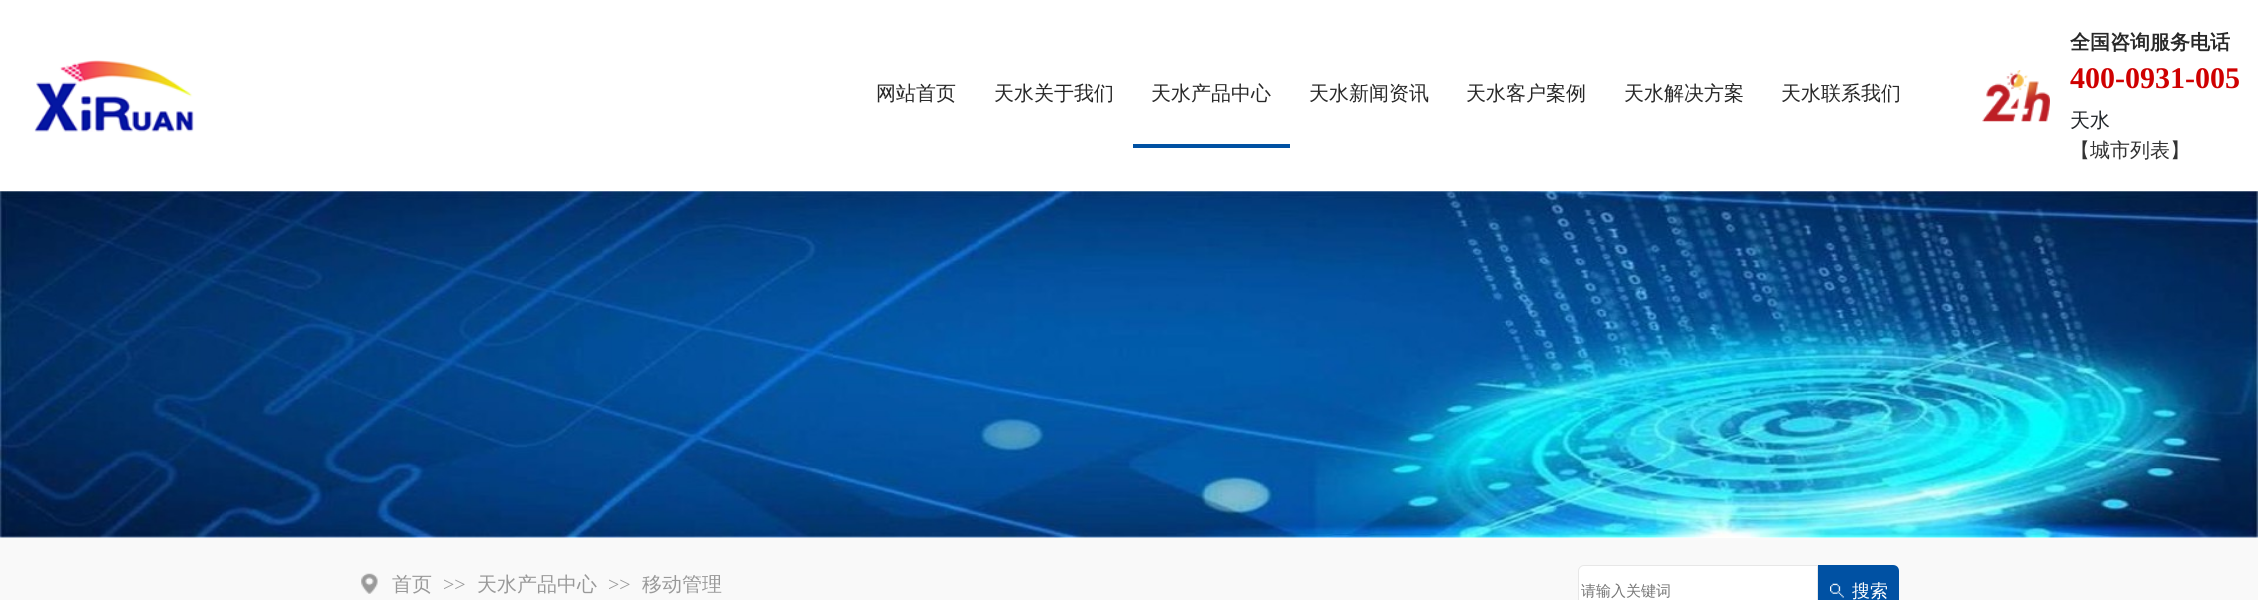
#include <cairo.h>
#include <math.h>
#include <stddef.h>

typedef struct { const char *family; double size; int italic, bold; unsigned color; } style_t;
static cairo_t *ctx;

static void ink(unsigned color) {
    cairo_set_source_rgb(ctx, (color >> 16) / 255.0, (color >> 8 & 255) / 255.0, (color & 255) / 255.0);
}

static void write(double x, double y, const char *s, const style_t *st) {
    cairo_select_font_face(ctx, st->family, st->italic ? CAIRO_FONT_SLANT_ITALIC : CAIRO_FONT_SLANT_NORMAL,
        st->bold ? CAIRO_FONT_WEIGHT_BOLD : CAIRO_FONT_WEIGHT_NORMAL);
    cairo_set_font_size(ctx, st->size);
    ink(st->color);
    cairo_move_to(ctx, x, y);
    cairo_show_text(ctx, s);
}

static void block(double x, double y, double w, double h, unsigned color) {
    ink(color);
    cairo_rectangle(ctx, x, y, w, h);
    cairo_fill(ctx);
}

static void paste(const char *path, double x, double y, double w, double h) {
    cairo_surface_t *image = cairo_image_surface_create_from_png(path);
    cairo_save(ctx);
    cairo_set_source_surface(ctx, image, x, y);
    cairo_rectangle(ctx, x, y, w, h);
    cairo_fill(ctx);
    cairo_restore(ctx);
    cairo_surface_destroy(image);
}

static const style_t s1 = {"WenQuanYi Zen Hei Medium", 20, 0, 0, 0x282828};
static const style_t s2 = {"WenQuanYi Zen Hei", 20, 0, 1, 0x282828};
static const style_t s3 = {"Liberation Serif", 30, 0, 1, 0xcf0000};
static const style_t s4 = {"WenQuanYi Zen Hei Medium", 20, 0, 0, 0x212529};
static const style_t s5 = {"WenQuanYi Zen Hei Medium", 20, 0, 0, 0x333333};
static const style_t s6 = {"WenQuanYi Zen Hei Medium", 20, 0, 0, 0x999999};
static const style_t s7 = {"Liberation Serif", 20, 0, 0, 0x999999};
static const style_t s8 = {"WenQuanYi Zen Hei Medium", 15, 0, 0, 0x757575};
static const style_t s9 = {"WenQuanYi Zen Hei Medium", 18, 0, 0, 0xffffff};

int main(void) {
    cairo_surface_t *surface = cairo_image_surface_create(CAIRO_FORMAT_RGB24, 2258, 600);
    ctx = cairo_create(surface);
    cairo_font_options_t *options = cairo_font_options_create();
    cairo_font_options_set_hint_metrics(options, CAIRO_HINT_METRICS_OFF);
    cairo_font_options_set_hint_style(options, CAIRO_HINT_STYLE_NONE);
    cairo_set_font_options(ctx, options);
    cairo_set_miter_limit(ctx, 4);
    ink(0xffffff);
    cairo_paint(ctx);
    paste("pic1.png", 34, 60, 160, 72);
    write(876, 100, "网站首页", &s1);
    write(994, 100, "天水关于我们", &s1);
    block(1133, 144, 157, 4, 0x0051a3);
    write(1151, 100, "天水产品中心", &s1);
    write(1309, 100, "天水新闻资讯", &s1);
    write(1466, 100, "天水客户案例", &s1);
    write(1624, 100, "天水解决方案", &s1);
    write(1781, 100, "天水联系我们", &s1);
    paste("pic2.png", 1982, 70, 68, 52);
    write(2070, 49, "全国咨询服务电话", &s2);
    write(2070, 88, "400-0931-005", &s3);
    write(2070, 127, "天水", &s4);
    write(2070, 157, "【城市列表】", &s5);
    paste("pic3.png", 0, 191, 2258, 347);
    block(0, 538, 2258, 62, 0xf9f9f9);
    paste("pic4.png", 361, 573, 17, 21);
    write(392, 591, "首页", &s6);
    write(443, 591, ">>", &s7);
    write(477, 591, "天水产品中心", &s6);
    write(608, 591, ">>", &s7);
    write(642, 591, "移动管理", &s6);
    ink(0xffffff);
    cairo_new_path(ctx);
    cairo_move_to(ctx, 1584, 565.5);
    cairo_line_to(ctx, 1817.5, 565.5);
    cairo_line_to(ctx, 1817.5, 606.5);
    cairo_line_to(ctx, 1584, 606.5);
    cairo_curve_to(ctx, 1581, 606.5, 1578.5, 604, 1578.5, 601);
    cairo_line_to(ctx, 1578.5, 571);
    cairo_curve_to(ctx, 1578.5, 568, 1581, 565.5, 1584, 565.5);
    cairo_close_path(ctx);
    cairo_fill_preserve(ctx);
    ink(0xe7e7e7);
    cairo_set_line_width(ctx, 1);
    cairo_stroke(ctx);
    write(1581, 596, "请输入关键词", &s8);
    ink(0x0051a3);
    cairo_new_path(ctx);
    cairo_move_to(ctx, 1818, 565);
    cairo_line_to(ctx, 1893, 565);
    cairo_curve_to(ctx, 1896.5, 565, 1899, 567.5, 1899, 571);
    cairo_line_to(ctx, 1899, 600);
    cairo_curve_to(ctx, 1899, 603.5, 1896.5, 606, 1893, 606);
    cairo_line_to(ctx, 1818, 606);
    cairo_close_path(ctx);
    cairo_fill(ctx);
    paste("pic5.png", 1830, 583, 14, 15);
    write(1852, 597, "搜索", &s9);
    cairo_surface_write_to_png(surface, "screenshot.png");
    cairo_font_options_destroy(options);
    cairo_destroy(ctx);
    cairo_surface_destroy(surface);
    return 0;
}
